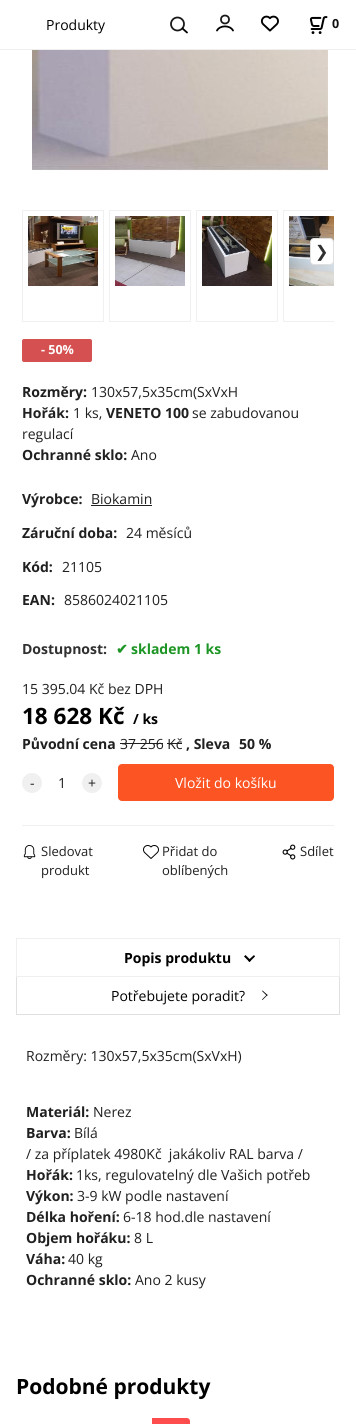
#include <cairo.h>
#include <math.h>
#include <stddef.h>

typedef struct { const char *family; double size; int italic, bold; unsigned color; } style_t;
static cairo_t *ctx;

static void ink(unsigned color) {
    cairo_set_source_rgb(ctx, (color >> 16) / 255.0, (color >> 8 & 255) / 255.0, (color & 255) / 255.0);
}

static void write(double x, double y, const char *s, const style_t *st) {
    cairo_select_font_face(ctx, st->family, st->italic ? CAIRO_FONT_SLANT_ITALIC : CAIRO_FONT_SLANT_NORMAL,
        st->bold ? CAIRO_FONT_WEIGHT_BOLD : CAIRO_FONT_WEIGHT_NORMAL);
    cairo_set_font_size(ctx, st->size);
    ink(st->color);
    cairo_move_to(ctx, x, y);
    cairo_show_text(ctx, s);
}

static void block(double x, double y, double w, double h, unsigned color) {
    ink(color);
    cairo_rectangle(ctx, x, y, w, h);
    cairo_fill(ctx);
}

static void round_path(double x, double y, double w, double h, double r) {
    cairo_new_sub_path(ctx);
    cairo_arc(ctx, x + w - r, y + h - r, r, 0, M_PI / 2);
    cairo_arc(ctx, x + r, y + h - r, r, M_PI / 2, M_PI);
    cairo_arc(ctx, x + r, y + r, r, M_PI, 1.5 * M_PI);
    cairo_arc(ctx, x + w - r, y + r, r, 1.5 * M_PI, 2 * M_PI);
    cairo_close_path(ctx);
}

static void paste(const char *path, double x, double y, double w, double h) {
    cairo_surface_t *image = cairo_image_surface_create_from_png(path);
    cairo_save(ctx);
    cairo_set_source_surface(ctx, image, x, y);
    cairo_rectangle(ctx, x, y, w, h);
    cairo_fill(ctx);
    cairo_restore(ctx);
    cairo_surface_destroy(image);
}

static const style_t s1 = {"Open Sans", 14, 0, 0, 0x000000};
static const style_t s2 = {"Open Sans", 12.5, 0, 1, 0x101010};
static const style_t s3 = {"DejaVu Sans", 16, 0, 0, 0x303030};
static const style_t s4 = {"Open Sans", 12.5, 0, 1, 0xffffff};
static const style_t s5 = {"Open Sans", 14, 0, 1, 0x202020};
static const style_t s6 = {"Open Sans", 14, 0, 0, 0x202020};
static const style_t s7 = {"Open Sans", 14, 0, 1, 0x303030};
static const style_t s8 = {"DejaVu Sans", 14, 0, 1, 0x1d9524};
static const style_t s9 = {"Open Sans", 14, 0, 1, 0x1d9524};
static const style_t s10 = {"Open Sans", 22.5, 0, 1, 0x000000};
static const style_t s11 = {"Open Sans", 14, 0, 1, 0x000000};
static const style_t s12 = {"Open Sans", 14, 0, 0, 0xffffff};
static const style_t s13 = {"Open Sans", 13, 0, 0, 0x202020};
static const style_t s14 = {"Open Sans", 21, 0, 1, 0x000000};

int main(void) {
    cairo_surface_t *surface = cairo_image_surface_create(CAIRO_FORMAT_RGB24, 356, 1424);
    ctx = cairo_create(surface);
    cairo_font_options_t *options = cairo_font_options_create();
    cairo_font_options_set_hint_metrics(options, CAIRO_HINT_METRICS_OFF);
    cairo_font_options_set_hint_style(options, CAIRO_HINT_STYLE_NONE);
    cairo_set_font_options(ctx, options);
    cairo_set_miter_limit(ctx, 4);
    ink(0xffffff);
    cairo_paint(ctx);
    block(0, 49, 356, 1, 0xefefef);
    write(46, 30, "Produkty", &s1);
    cairo_new_path(ctx);
    cairo_arc(ctx, 177.5, 24, 6.5, 0, 2 * M_PI);
    ink(0x191919);
    cairo_set_line_width(ctx, 1.8);
    cairo_stroke(ctx);
    cairo_new_path(ctx);
    cairo_move_to(ctx, 182.5, 28.5);
    cairo_line_to(ctx, 187, 32.5);
    ink(0x000000);
    cairo_set_line_cap(ctx, CAIRO_LINE_CAP_ROUND);
    cairo_stroke(ctx);
    cairo_arc(ctx, 225, 19.5, 4, 0, 2 * M_PI);
    ink(0x191919);
    cairo_set_line_cap(ctx, CAIRO_LINE_CAP_BUTT);
    cairo_stroke(ctx);
    cairo_new_path(ctx);
    cairo_move_to(ctx, 217, 30.5);
    cairo_curve_to(ctx, 220, 25, 230, 25, 233, 30.5);
    ink(0x000000);
    cairo_set_line_cap(ctx, CAIRO_LINE_CAP_ROUND);
    cairo_stroke(ctx);
    paste("pic1.png", 261, 15, 18, 17);
    paste("pic2.png", 309, 16, 19, 18);
    write(332, 28, "0", &s2);
    paste("pic3.png", 32, 50, 296, 121);
    cairo_rectangle(ctx, 22.5, 210.5, 81, 111);
    ink(0xf0f0f0);
    cairo_set_line_width(ctx, 1);
    cairo_set_line_cap(ctx, CAIRO_LINE_CAP_BUTT);
    cairo_stroke(ctx);
    paste("pic4.png", 28, 216, 70, 70);
    cairo_rectangle(ctx, 109.5, 210.5, 81, 111);
    cairo_stroke(ctx);
    paste("pic5.png", 115, 216, 70, 70);
    cairo_rectangle(ctx, 196.5, 210.5, 81, 111);
    cairo_stroke(ctx);
    paste("pic6.png", 202, 216, 70, 70);
    cairo_save(ctx);
    cairo_rectangle(ctx, 22, 210, 312, 112);
    cairo_clip(ctx);
    cairo_rectangle(ctx, 283.5, 210.5, 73, 111);
    cairo_stroke(ctx);
    cairo_restore(ctx);
    paste("pic7.png", 289, 216, 45, 70);
    ink(0xffffff);
    round_path(310.5, 238.5, 23, 26, 3.5);
    cairo_fill_preserve(ctx);
    ink(0xe0e0e0);
    cairo_stroke(ctx);
    write(315, 257, "❯", &s3);
    ink(0xd55151);
    round_path(22, 339, 70, 23, 2);
    cairo_fill(ctx);
    write(41, 354, "- 50%", &s4);
    write(22, 397, "Rozměry:", &s5);
    write(91, 397, "130x57,5x35cm(SxVxH", &s6);
    write(22, 418, "Hořák:", &s5);
    write(73, 418, "1 ks,", &s6);
    write(106, 418, "VENETO 100", &s5);
    write(192, 418, "se zabudovanou", &s6);
    write(22, 439, "regulací", &s6);
    write(22, 460, "Ochranné sklo:", &s5);
    write(131, 460, "Ano", &s6);
    write(22, 504, "Výrobce:", &s5);
    write(91, 504, "Biokamin", &s6);
    block(91, 505, 61, 1, 0x202020);
    write(22, 538, "Záruční doba:", &s5);
    write(126, 538, "24 měsíců", &s6);
    write(22, 572, "Kód:", &s5);
    write(62, 572, "21105", &s6);
    write(22, 605, "EAN:", &s5);
    write(64, 605, "8586024021105", &s6);
    write(22, 654, "Dostupnost:", &s7);
    write(116, 654, "✔", &s8);
    write(131, 654, "skladem 1 ks", &s9);
    write(22, 694, "15 395.04 Kč bez DPH", &s6);
    write(22, 724, "18 628 Kč", &s10);
    write(133, 724, "/ ks", &s11);
    write(22, 749, "Původní cena", &s5);
    write(120, 749, "37 256 Kč", &s6);
    block(120, 743, 43, 1, 0x202020);
    block(167, 743, 15, 1, 0x202020);
    write(186, 749, ", Sleva", &s5);
    write(239, 749, "50 %", &s5);
    ink(0xf0f0f0);
    cairo_new_path(ctx);
    cairo_arc(ctx, 32, 783, 10, 0, 2 * M_PI);
    cairo_fill(ctx);
    write(30, 788, "-", &s6);
    write(58, 788, "1", &s6);
    ink(0xf0f0f0);
    cairo_new_path(ctx);
    cairo_arc(ctx, 92, 783, 10, 0, 2 * M_PI);
    cairo_fill(ctx);
    write(88, 788, "+", &s6);
    ink(0xfc5423);
    round_path(118, 764, 216, 37, 4);
    cairo_fill(ctx);
    write(175, 788, "Vložit do košíku", &s12);
    block(22, 825, 312, 1, 0xf0f0f0);
    paste("pic8.png", 23, 845, 13, 14);
    write(41, 856, "Sledovat", &s13);
    write(41, 875, "produkt", &s13);
    paste("pic9.png", 143, 845, 16, 14);
    write(162, 856, "Přidat do", &s13);
    write(162, 875, "oblíbených", &s13);
    paste("pic10.png", 282, 844, 14, 16);
    write(300, 856, "Sdílet", &s13);
    cairo_rectangle(ctx, 16.5, 938.5, 323, 38);
    ink(0xefefef);
    cairo_stroke(ctx);
    write(124, 963, "Popis produktu", &s11);
    cairo_new_path(ctx);
    cairo_move_to(ctx, 248, 960.5);
    cairo_line_to(ctx, 254, 955);
    cairo_line_to(ctx, 255, 956.5);
    cairo_line_to(ctx, 249.5, 962);
    cairo_close_path(ctx);
    cairo_fill(ctx);
    cairo_new_path(ctx);
    cairo_move_to(ctx, 244, 956.5);
    cairo_line_to(ctx, 245.5, 955);
    cairo_line_to(ctx, 251, 960.5);
    cairo_line_to(ctx, 249.5, 962);
    cairo_close_path(ctx);
    cairo_fill(ctx);
    block(339, 977, 1, 38, 0xe0e0e0);
    block(16, 1014, 324, 1, 0xe0e0e0);
    block(16, 977, 1, 38, 0xe0e0e0);
    write(111, 1001, "Potřebujete poradit?", &s1);
    cairo_new_path(ctx);
    cairo_move_to(ctx, 262, 991);
    cairo_line_to(ctx, 262.5, 990.5);
    cairo_line_to(ctx, 267.5, 995);
    cairo_line_to(ctx, 267, 996);
    cairo_close_path(ctx);
    cairo_fill(ctx);
    cairo_new_path(ctx);
    cairo_move_to(ctx, 262, 999.5);
    cairo_line_to(ctx, 267, 994.5);
    cairo_line_to(ctx, 267.5, 995);
    cairo_line_to(ctx, 262.5, 1000);
    cairo_close_path(ctx);
    cairo_fill(ctx);
    write(26, 1061, "Rozměry: 130x57,5x35cm(SxVxH)", &s6);
    write(26, 1117, "Materiál:", &s5);
    write(93, 1117, "Nerez", &s6);
    write(26, 1138, "Barva:", &s5);
    write(74, 1138, "Bílá", &s6);
    write(26, 1159, "/ za příplatek 4980Kč  jakákoliv RAL barva /", &s6);
    write(26, 1180, "Hořák:", &s5);
    write(76, 1180, "1ks, regulovatelný dle Vašich potřeb", &s6);
    write(26, 1201, "Výkon:", &s5);
    write(77, 1201, "3-9 kW podle nastavení", &s6);
    write(26, 1222, "Délka hoření:", &s5);
    write(123, 1222, "6-18 hod.dle nastavení", &s6);
    write(26, 1243, "Objem hořáku:", &s5);
    write(134, 1243, "8 L", &s6);
    write(26, 1264, "Váha:", &s5);
    write(68, 1264, "40 kg", &s6);
    write(26, 1285, "Ochranné sklo:", &s5);
    write(135, 1285, "Ano 2 kusy", &s6);
    write(16, 1394, "Podobné produkty", &s14);
    ink(0xff4d4d);
    cairo_new_path(ctx);
    cairo_move_to(ctx, 152, 1418);
    cairo_line_to(ctx, 187, 1418);
    cairo_curve_to(ctx, 188.5, 1418, 190, 1419.5, 190, 1421);
    cairo_line_to(ctx, 190, 1424);
    cairo_curve_to(ctx, 190, 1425.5, 188.5, 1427, 187, 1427);
    cairo_line_to(ctx, 152, 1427);
    cairo_close_path(ctx);
    cairo_fill(ctx);
    cairo_surface_write_to_png(surface, "screenshot.png");
    cairo_font_options_destroy(options);
    cairo_destroy(ctx);
    cairo_surface_destroy(surface);
    return 0;
}
